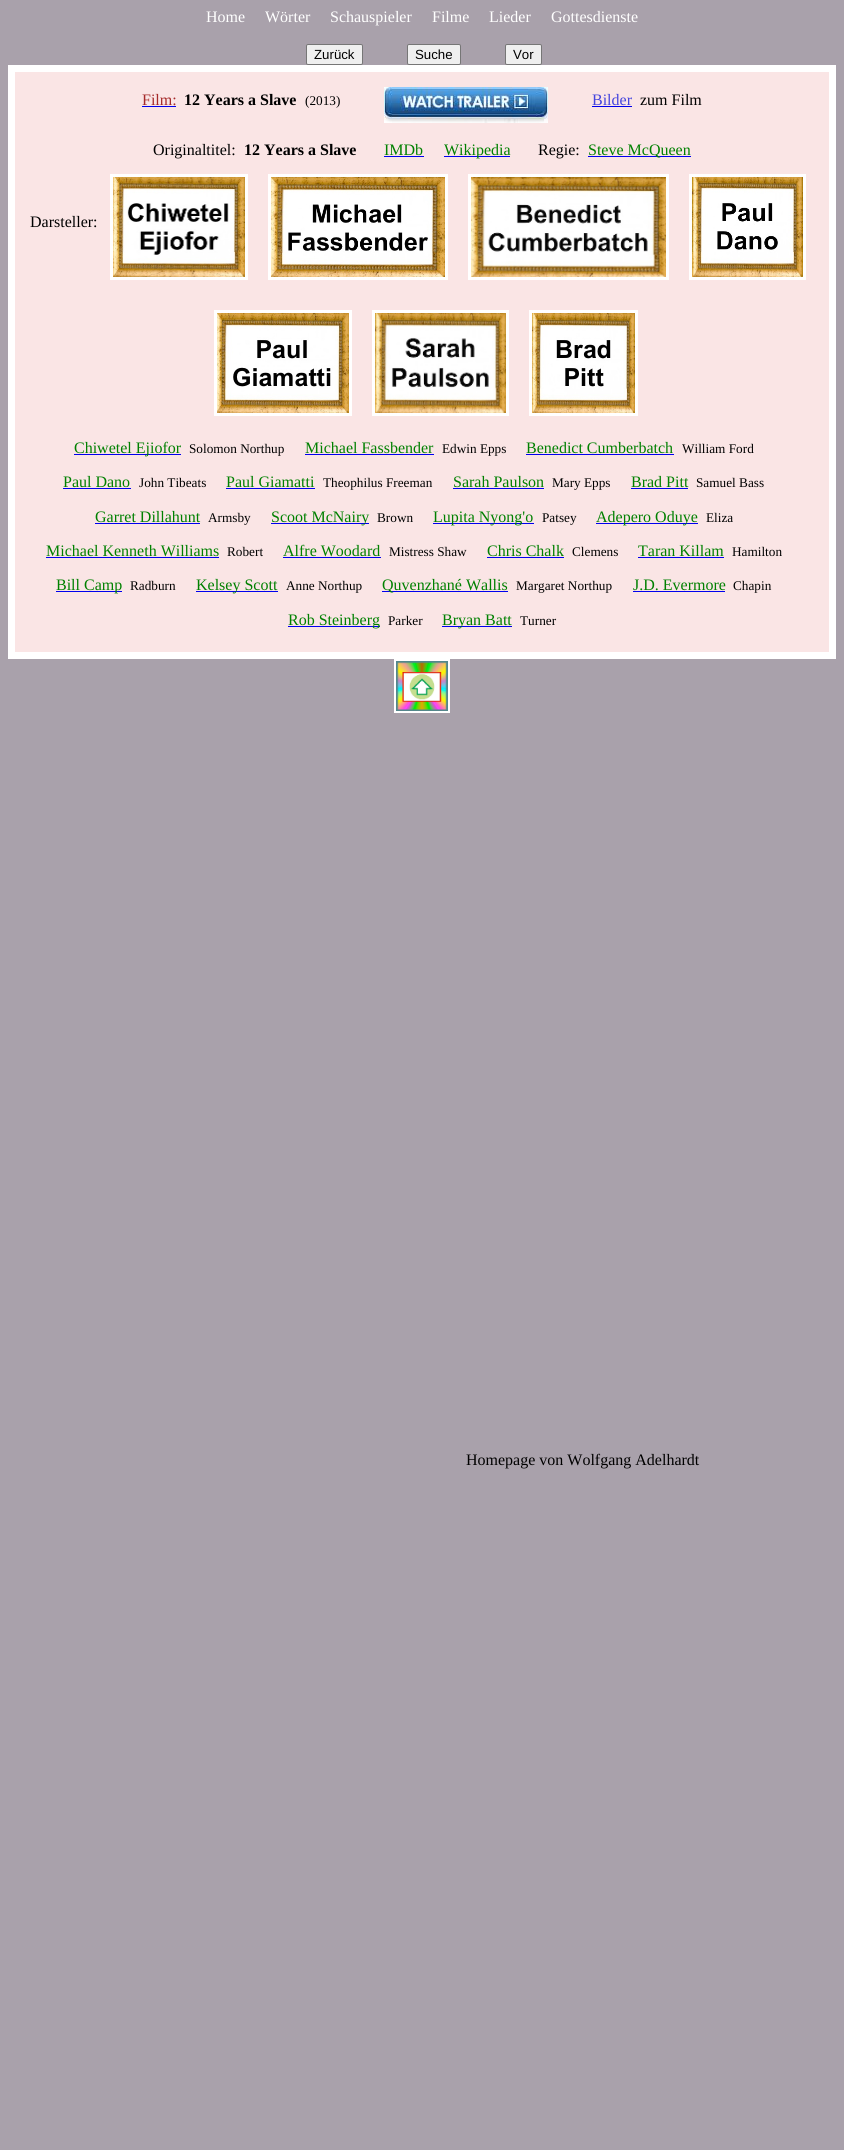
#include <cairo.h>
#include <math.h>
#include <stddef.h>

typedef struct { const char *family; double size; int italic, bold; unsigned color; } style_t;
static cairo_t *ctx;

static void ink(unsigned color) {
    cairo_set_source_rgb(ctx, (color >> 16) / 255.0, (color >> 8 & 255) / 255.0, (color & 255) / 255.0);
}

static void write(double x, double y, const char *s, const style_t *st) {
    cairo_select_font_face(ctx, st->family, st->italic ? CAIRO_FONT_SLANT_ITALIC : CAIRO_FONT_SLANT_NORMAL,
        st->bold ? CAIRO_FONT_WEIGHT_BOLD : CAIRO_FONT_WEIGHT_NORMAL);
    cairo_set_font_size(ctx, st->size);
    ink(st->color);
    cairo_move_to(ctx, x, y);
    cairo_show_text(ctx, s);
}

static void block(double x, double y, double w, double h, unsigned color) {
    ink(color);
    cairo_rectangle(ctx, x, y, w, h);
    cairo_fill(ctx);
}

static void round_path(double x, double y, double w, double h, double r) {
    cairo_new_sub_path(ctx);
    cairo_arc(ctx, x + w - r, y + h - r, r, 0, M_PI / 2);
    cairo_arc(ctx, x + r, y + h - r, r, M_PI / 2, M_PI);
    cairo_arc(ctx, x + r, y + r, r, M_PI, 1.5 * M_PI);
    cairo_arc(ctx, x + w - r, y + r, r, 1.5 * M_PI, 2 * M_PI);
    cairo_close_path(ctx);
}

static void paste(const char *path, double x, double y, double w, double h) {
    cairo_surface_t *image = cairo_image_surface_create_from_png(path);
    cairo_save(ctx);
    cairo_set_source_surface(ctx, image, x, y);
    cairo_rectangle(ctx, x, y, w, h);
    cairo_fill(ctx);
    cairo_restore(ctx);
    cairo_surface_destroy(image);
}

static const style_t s1 = {"Liberation Serif", 16, 0, 0, 0xffffff};
static const style_t s2 = {"Liberation Sans", 13.25, 0, 0, 0x000000};
static const style_t s3 = {"Liberation Serif", 16, 0, 0, 0xa52a2a};
static const style_t s4 = {"Liberation Serif", 16, 0, 1, 0x000000};
static const style_t s5 = {"Liberation Serif", 13.25, 0, 0, 0x000000};
static const style_t s6 = {"Liberation Serif", 16, 0, 0, 0x4444dd};
static const style_t s7 = {"Liberation Serif", 16, 0, 0, 0x000000};
static const style_t s8 = {"Liberation Serif", 16, 0, 0, 0x008000};

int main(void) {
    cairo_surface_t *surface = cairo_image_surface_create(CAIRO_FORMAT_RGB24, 844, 2150);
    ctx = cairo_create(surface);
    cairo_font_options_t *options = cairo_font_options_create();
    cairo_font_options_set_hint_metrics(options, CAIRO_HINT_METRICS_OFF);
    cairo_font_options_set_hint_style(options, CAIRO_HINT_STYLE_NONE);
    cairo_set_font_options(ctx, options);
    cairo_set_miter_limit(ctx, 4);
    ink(0xa9a1ab);
    cairo_paint(ctx);
    write(206, 22, "Home", &s1);
    write(265, 22, "Wörter", &s1);
    write(330, 22, "Schauspieler", &s1);
    write(432, 22, "Filme", &s1);
    write(489, 22, "Lieder", &s1);
    write(551, 22, "Gottesdienste", &s1);
    ink(0xefefef);
    round_path(306.5, 44.5, 56, 20, 1.5);
    cairo_fill_preserve(ctx);
    ink(0x767676);
    cairo_set_line_width(ctx, 1);
    cairo_stroke(ctx);
    write(314, 59, "Zurück", &s2);
    ink(0xefefef);
    round_path(407.5, 44.5, 53, 20, 1.5);
    cairo_fill_preserve(ctx);
    ink(0x767676);
    cairo_stroke(ctx);
    write(415, 59, "Suche", &s2);
    ink(0xefefef);
    round_path(505.5, 44.5, 36, 20, 1.5);
    cairo_fill_preserve(ctx);
    ink(0x767676);
    cairo_stroke(ctx);
    write(513, 59, "Vor", &s2);
    block(8, 65, 828, 594, 0xffffff);
    block(15, 72, 814, 580, 0xfae5e5);
    write(142, 105, "Film:", &s3);
    block(142, 106, 34, 1, 0x0000ee);
    write(184, 105, "12 Years a Slave", &s4);
    write(305, 105, "(2013)", &s5);
    paste("pic1.png", 384, 87, 164, 36);
    write(592, 105, "Bilder", &s6);
    block(592, 106, 40, 1, 0x0000ee);
    write(640, 105, "zum Film", &s7);
    write(153, 155, "Originaltitel:", &s7);
    write(244, 155, "12 Years a Slave", &s4);
    write(384, 155, "IMDb", &s8);
    block(384, 156, 40, 1, 0x0000ee);
    block(444, 156, 66, 1, 0x0000ee);
    write(444, 155, "Wikipedia", &s8);
    write(538, 155, "Regie:", &s7);
    block(588, 156, 103, 1, 0x0000ee);
    write(588, 155, "Steve McQueen", &s8);
    cairo_rectangle(ctx, 111.5, 175.5, 135, 103);
    ink(0xffffff);
    cairo_set_line_width(ctx, 3);
    cairo_stroke(ctx);
    cairo_rectangle(ctx, 269.5, 175.5, 177, 103);
    cairo_stroke(ctx);
    cairo_rectangle(ctx, 469.5, 175.5, 198, 103);
    cairo_stroke(ctx);
    cairo_rectangle(ctx, 690.5, 175.5, 114, 103);
    cairo_stroke(ctx);
    write(30, 227, "Darsteller:", &s7);
    paste("pic2.png", 113, 177, 132, 100);
    paste("pic3.png", 271, 177, 174, 100);
    paste("pic4.png", 471, 177, 195, 100);
    paste("pic5.png", 692, 177, 111, 100);
    cairo_rectangle(ctx, 215.5, 311.5, 135, 103);
    ink(0xffffff);
    cairo_stroke(ctx);
    cairo_rectangle(ctx, 373.5, 311.5, 134, 103);
    cairo_stroke(ctx);
    cairo_rectangle(ctx, 530.5, 311.5, 106, 103);
    cairo_stroke(ctx);
    paste("pic6.png", 217, 313, 132, 100);
    paste("pic7.png", 375, 313, 131, 100);
    paste("pic8.png", 532, 313, 103, 100);
    block(74, 454, 107, 1, 0x0000ee);
    write(74, 453, "Chiwetel Ejiofor", &s8);
    write(189, 453, "Solomon Northup", &s5);
    write(305, 453, "Michael Fassbender", &s8);
    block(305, 454, 129, 1, 0x0000ee);
    write(442, 453, "Edwin Epps", &s5);
    write(526, 453, "Benedict Cumberbatch", &s8);
    block(526, 454, 148, 1, 0x0000ee);
    write(682, 453, "William Ford", &s5);
    write(63, 487, "Paul Dano", &s8);
    block(63, 488, 68, 1, 0x0000ee);
    write(139, 487, "John Tibeats", &s5);
    write(226, 487, "Paul Giamatti", &s8);
    block(226, 488, 89, 1, 0x0000ee);
    write(323, 487, "Theophilus Freeman", &s5);
    write(453, 487, "Sarah Paulson", &s8);
    block(453, 488, 91, 1, 0x0000ee);
    write(552, 487, "Mary Epps", &s5);
    write(631, 487, "Brad Pitt", &s8);
    block(631, 488, 57, 1, 0x0000ee);
    write(696, 487, "Samuel Bass", &s5);
    write(95, 522, "Garret Dillahunt", &s8);
    block(95, 523, 105, 1, 0x0000ee);
    write(208, 522, "Armsby", &s5);
    block(271, 523, 98, 1, 0x0000ee);
    write(271, 522, "Scoot McNairy", &s8);
    write(377, 522, "Brown", &s5);
    block(433, 523, 101, 1, 0x0000ee);
    write(433, 522, "Lupita Nyong'o", &s8);
    write(542, 522, "Patsey", &s5);
    block(596, 523, 102, 1, 0x0000ee);
    write(596, 522, "Adepero Oduye", &s8);
    write(706, 522, "Eliza", &s5);
    write(46, 556, "Michael Kenneth Williams", &s8);
    block(46, 557, 173, 1, 0x0000ee);
    write(227, 556, "Robert", &s5);
    write(283, 556, "Alfre Woodard", &s8);
    block(283, 557, 98, 1, 0x0000ee);
    write(389, 556, "Mistress Shaw", &s5);
    write(487, 556, "Chris Chalk", &s8);
    block(487, 557, 77, 1, 0x0000ee);
    write(572, 556, "Clemens", &s5);
    write(638, 556, "Taran Killam", &s8);
    block(638, 557, 86, 1, 0x0000ee);
    write(732, 556, "Hamilton", &s5);
    block(56, 591, 66, 1, 0x0000ee);
    write(56, 590, "Bill Camp", &s8);
    write(130, 590, "Radburn", &s5);
    block(196, 591, 82, 1, 0x0000ee);
    write(196, 590, "Kelsey Scott", &s8);
    write(286, 590, "Anne Northup", &s5);
    block(382, 591, 126, 1, 0x0000ee);
    write(382, 590, "Quvenzhané Wallis", &s8);
    write(516, 590, "Margaret Northup", &s5);
    write(633, 590, "J.D. Evermore", &s8);
    block(633, 591, 92, 1, 0x0000ee);
    write(733, 590, "Chapin", &s5);
    block(288, 626, 92, 1, 0x0000ee);
    write(288, 625, "Rob Steinberg", &s8);
    write(388, 625, "Parker", &s5);
    block(442, 626, 70, 1, 0x0000ee);
    write(442, 625, "Bryan Batt", &s8);
    write(520, 625, "Turner", &s5);
    cairo_rectangle(ctx, 395, 660, 54, 52);
    ink(0xffffff);
    cairo_set_line_width(ctx, 2);
    cairo_stroke(ctx);
    paste("pic9.png", 396, 661, 52, 50);
    write(466, 1465, "Homepage von Wolfgang Adelhardt", &s7);
    cairo_surface_write_to_png(surface, "screenshot.png");
    cairo_font_options_destroy(options);
    cairo_destroy(ctx);
    cairo_surface_destroy(surface);
    return 0;
}
